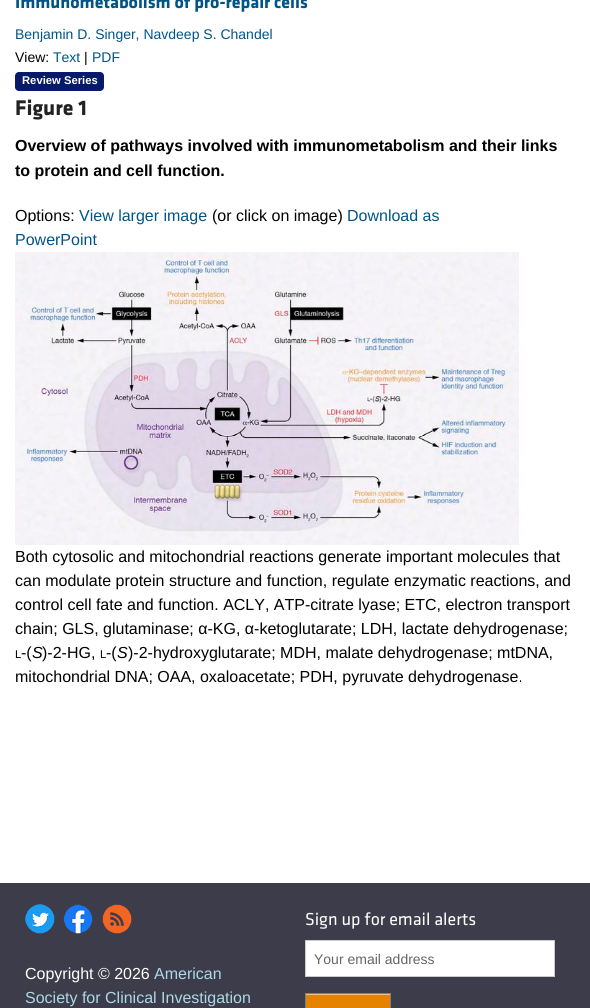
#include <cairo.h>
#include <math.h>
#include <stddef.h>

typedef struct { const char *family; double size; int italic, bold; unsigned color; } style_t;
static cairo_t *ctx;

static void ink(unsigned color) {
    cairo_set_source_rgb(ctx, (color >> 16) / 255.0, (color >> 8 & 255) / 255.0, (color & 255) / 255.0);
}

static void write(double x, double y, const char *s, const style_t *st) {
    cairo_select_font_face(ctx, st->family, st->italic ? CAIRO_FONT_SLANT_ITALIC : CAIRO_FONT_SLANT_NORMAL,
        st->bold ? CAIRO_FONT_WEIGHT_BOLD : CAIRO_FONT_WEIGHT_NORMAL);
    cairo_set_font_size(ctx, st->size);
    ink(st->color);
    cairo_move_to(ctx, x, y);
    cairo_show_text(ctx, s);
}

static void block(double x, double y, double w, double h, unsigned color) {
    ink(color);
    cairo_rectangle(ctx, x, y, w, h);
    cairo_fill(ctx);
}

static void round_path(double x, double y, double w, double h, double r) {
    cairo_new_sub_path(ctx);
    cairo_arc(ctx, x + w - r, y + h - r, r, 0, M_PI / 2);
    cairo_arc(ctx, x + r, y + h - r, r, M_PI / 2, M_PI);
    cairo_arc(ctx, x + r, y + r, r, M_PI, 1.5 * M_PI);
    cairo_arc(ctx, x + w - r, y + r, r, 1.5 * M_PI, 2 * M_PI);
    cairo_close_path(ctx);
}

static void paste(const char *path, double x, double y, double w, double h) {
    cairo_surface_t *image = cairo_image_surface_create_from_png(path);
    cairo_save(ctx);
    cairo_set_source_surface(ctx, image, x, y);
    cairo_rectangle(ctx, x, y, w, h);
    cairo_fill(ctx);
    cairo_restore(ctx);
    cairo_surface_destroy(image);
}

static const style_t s1 = {"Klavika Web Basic", 18, 0, 1, 0x015486};
static const style_t s2 = {"Liberation Sans", 14, 0, 0, 0x015486};
static const style_t s3 = {"Liberation Sans", 14, 0, 0, 0x000000};
static const style_t s4 = {"Liberation Sans", 11.25, 0, 1, 0xffffff};
static const style_t s5 = {"Klavika Web Basic", 22, 0, 1, 0x222222};
static const style_t s6 = {"Liberation Sans", 16, 0, 1, 0x000000};
static const style_t s7 = {"Liberation Sans", 16, 0, 0, 0x000000};
static const style_t s8 = {"Liberation Sans", 16, 0, 0, 0x015486};
static const style_t s9 = {"Liberation Sans", 11.25, 0, 0, 0x000000};
static const style_t s10 = {"Liberation Sans", 16, 1, 0, 0x000000};
static const style_t s11 = {"Klavika Web Basic", 18, 0, 0, 0xffffff};
static const style_t s12 = {"Liberation Sans", 14, 0, 0, 0x666666};
static const style_t s13 = {"Liberation Sans", 16, 0, 0, 0xffffff};
static const style_t s14 = {"Liberation Sans", 16, 0, 0, 0xadd8e6};

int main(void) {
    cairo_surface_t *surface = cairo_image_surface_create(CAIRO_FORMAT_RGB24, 590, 1008);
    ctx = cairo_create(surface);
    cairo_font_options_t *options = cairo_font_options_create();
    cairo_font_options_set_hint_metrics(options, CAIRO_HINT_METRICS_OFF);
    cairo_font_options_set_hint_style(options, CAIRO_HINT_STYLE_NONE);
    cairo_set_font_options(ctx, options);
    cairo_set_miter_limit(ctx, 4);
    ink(0xffffff);
    cairo_paint(ctx);
    write(15, 8, "Immunometabolism of pro-repair cells", &s1);
    write(15, 39, "Benjamin D. Singer, Navdeep S. Chandel", &s2);
    write(15, 62, "View:", &s3);
    write(53, 62, "Text", &s2);
    write(84, 62, "|", &s3);
    write(92, 62, "PDF", &s2);
    ink(0x071a69);
    round_path(15, 72, 89, 19, 4);
    cairo_fill(ctx);
    write(22, 84, "Review Series", &s4);
    write(15, 115, "Figure 1", &s5);
    write(15, 151, "Overview of pathways involved with immunometabolism and their links", &s6);
    write(15, 176, "to protein and cell function.", &s6);
    write(15, 221, "Options:", &s7);
    write(79, 221, "View larger image", &s8);
    write(212, 221, "(or click on image)", &s7);
    write(347, 221, "Download as", &s8);
    write(15, 245, "PowerPoint", &s8);
    paste("pic1.png", 15, 252, 504, 293);
    write(15, 562, "Both cytosolic and mitochondrial reactions generate important molecules that", &s7);
    write(15, 586, "can modulate protein structure and function, regulate enzymatic reactions, and", &s7);
    write(15, 610, "control cell fate and function. ACLY, ATP-citrate lyase; ETC, electron transport", &s7);
    write(15, 634, "chain; GLS, glutaminase; α-KG, α-ketoglutarate; LDH, lactate dehydrogenase;", &s7);
    write(15, 658, "L", &s9);
    write(21, 658, "-(", &s7);
    write(32, 658, "S", &s10);
    write(42, 658, ")-2-HG,", &s7);
    write(100, 658, "L", &s9);
    write(106, 658, "-(", &s7);
    write(117, 658, "S", &s10);
    write(128, 658, ")-2-hydroxyglutarate; MDH, malate dehydrogenase; mtDNA,", &s7);
    write(15, 682, "mitochondrial DNA; OAA, oxaloacetate; PDH, pyruvate dehydrogenase.", &s7);
    block(0, 883, 590, 125, 0x3c3c4b);
    write(305, 925, "Sign up for email alerts", &s11);
    cairo_rectangle(ctx, 305.5, 940.5, 249, 36);
    cairo_fill_preserve(ctx);
    ink(0xcccccc);
    cairo_set_line_width(ctx, 1);
    cairo_stroke(ctx);
    write(314, 964, "Your email address", &s12);
    block(306, 995, 84, 13, 0xe58200);
    block(306, 994, 84, 1, 0xf2c180);
    cairo_rectangle(ctx, 305.5, 993.5, 85, 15);
    ink(0x808080);
    cairo_stroke(ctx);
    paste("pic2.png", 25, 904, 30, 30);
    paste("pic3.png", 63, 904, 30, 30);
    paste("pic4.png", 102, 904, 30, 30);
    write(25, 979, "Copyright © 2026", &s13);
    write(154, 979, "American", &s14);
    write(25, 1003, "Society for Clinical Investigation", &s14);
    cairo_surface_write_to_png(surface, "screenshot.png");
    cairo_font_options_destroy(options);
    cairo_destroy(ctx);
    cairo_surface_destroy(surface);
    return 0;
}
